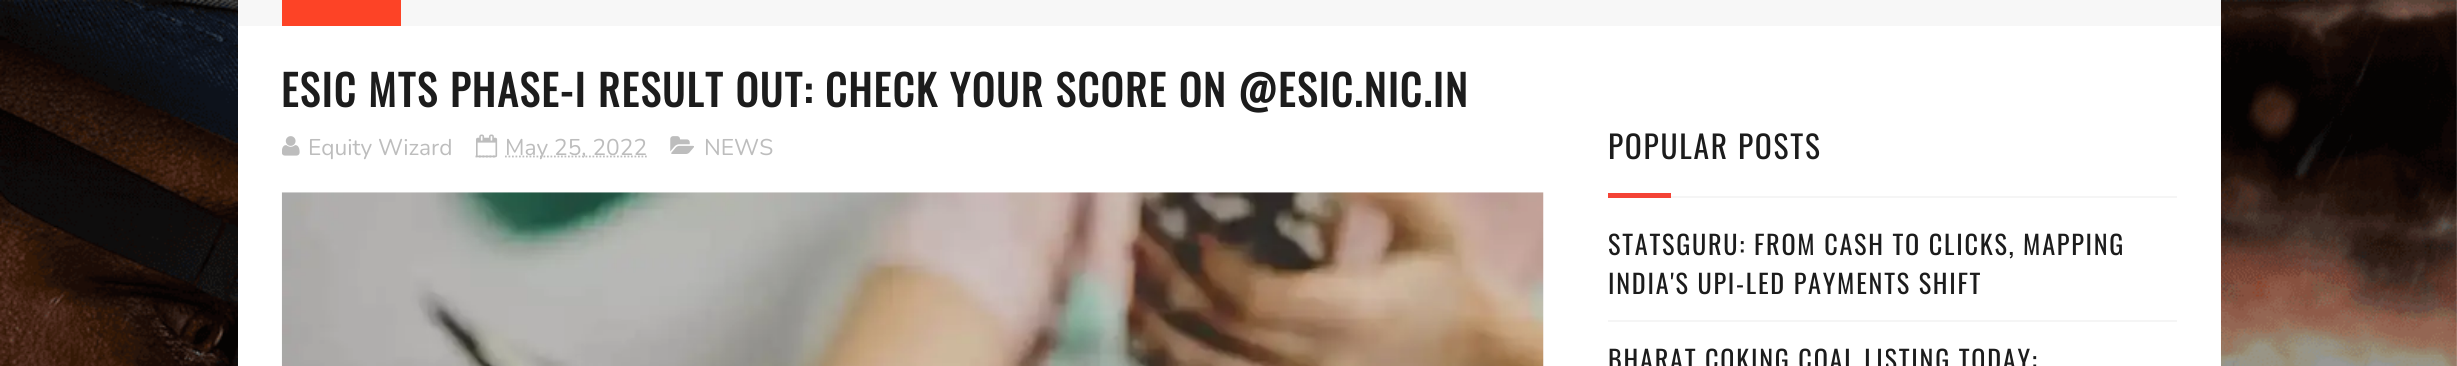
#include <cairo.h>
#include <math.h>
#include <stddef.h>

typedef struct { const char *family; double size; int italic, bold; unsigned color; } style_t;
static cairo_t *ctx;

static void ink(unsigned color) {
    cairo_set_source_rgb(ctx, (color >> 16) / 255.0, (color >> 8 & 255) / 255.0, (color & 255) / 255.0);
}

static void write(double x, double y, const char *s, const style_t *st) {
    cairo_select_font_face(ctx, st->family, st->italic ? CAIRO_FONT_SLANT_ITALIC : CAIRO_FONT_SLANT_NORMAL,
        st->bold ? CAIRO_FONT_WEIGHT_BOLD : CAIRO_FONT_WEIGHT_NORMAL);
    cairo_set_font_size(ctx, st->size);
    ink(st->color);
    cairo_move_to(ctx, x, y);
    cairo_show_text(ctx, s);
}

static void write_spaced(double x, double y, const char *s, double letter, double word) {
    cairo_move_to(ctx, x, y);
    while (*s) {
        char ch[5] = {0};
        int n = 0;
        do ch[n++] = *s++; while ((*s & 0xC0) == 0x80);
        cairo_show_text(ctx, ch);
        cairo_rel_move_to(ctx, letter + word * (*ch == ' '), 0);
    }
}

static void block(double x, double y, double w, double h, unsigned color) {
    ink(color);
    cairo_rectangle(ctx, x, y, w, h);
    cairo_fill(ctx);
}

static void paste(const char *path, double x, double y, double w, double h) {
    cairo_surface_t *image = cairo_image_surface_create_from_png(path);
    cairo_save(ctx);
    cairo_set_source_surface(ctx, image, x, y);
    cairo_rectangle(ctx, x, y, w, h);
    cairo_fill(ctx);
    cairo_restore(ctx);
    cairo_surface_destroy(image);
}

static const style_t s1 = {"Nunito", 22.75, 0, 0, 0xbdbdbd};

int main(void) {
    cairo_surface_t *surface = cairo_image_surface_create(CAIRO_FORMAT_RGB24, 2457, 366);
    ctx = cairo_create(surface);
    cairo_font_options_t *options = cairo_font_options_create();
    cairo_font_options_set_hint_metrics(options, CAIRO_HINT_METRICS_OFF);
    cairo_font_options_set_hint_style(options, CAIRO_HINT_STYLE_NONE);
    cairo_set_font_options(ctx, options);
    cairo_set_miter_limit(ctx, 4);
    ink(0xffffff);
    cairo_paint(ctx);
    paste("pic1.png", 0, 0, 2457, 366);
    block(238, 26, 1983, 340, 0xffffff);
    block(238, 0, 1983, 26, 0xf7f7f7);
    block(282, 0, 119, 26, 0xfd4326);
    cairo_select_font_face(ctx, "Oswald", CAIRO_FONT_SLANT_NORMAL, CAIRO_FONT_WEIGHT_BOLD);
    cairo_set_font_size(ctx, 42);
    ink(0x1c1c1c);
    write_spaced(281, 107, "ESIC MTS PHASE-I RESULT OUT: CHECK YOUR SCORE ON @ESIC.NIC.IN", 1.75, 0);
    paste("pic2.png", 282, 136, 18, 20);
    write(308, 155, "Equity Wizard", &s1);
    cairo_new_path(ctx);
    cairo_move_to(ctx, 475.5, 156.5);
    cairo_line_to(ctx, 496.5, 156.5);
    cairo_set_line_width(ctx, 1.8);
    cairo_set_dash(ctx, (double[]){1.75, 1.75}, 2, 0);
    cairo_stroke(ctx);
    paste("pic3.png", 476, 134, 22, 24);
    cairo_new_path(ctx);
    cairo_move_to(ctx, 505, 156.5);
    cairo_line_to(ctx, 647.5, 156.5);
    cairo_stroke(ctx);
    write(505, 155, "May 25, 2022", &s1);
    paste("pic4.png", 670, 136, 24, 18);
    write(704, 155, "NEWS", &s1);
    paste("pic5.png", 281, 192, 1263, 174);
    block(1671, 196, 506, 2, 0xf5f5f5);
    cairo_select_font_face(ctx, "Oswald", CAIRO_FONT_SLANT_NORMAL, CAIRO_FONT_WEIGHT_NORMAL);
    cairo_set_font_size(ctx, 31.5);
    ink(0x1c1c1c);
    write_spaced(1608, 159, "POPULAR POSTS", 1.75, 0);
    block(1608, 193, 63, 5, 0xf44336);
    cairo_set_font_size(ctx, 26.25);
    ink(0x1c1c1c);
    write_spaced(1608, 255, "STATSGURU: FROM CASH TO CLICKS, MAPPING", 1.75, 0);
    write_spaced(1608, 294, "INDIA'S UPI-LED PAYMENTS SHIFT", 1.75, 0);
    block(1608, 320, 569, 2, 0xf5f5f5);
    ink(0x1c1c1c);
    write_spaced(1608, 370, "BHARAT COKING COAL LISTING TODAY:", 1.75, 0);
    cairo_surface_write_to_png(surface, "screenshot.png");
    cairo_font_options_destroy(options);
    cairo_destroy(ctx);
    cairo_surface_destroy(surface);
    return 0;
}
